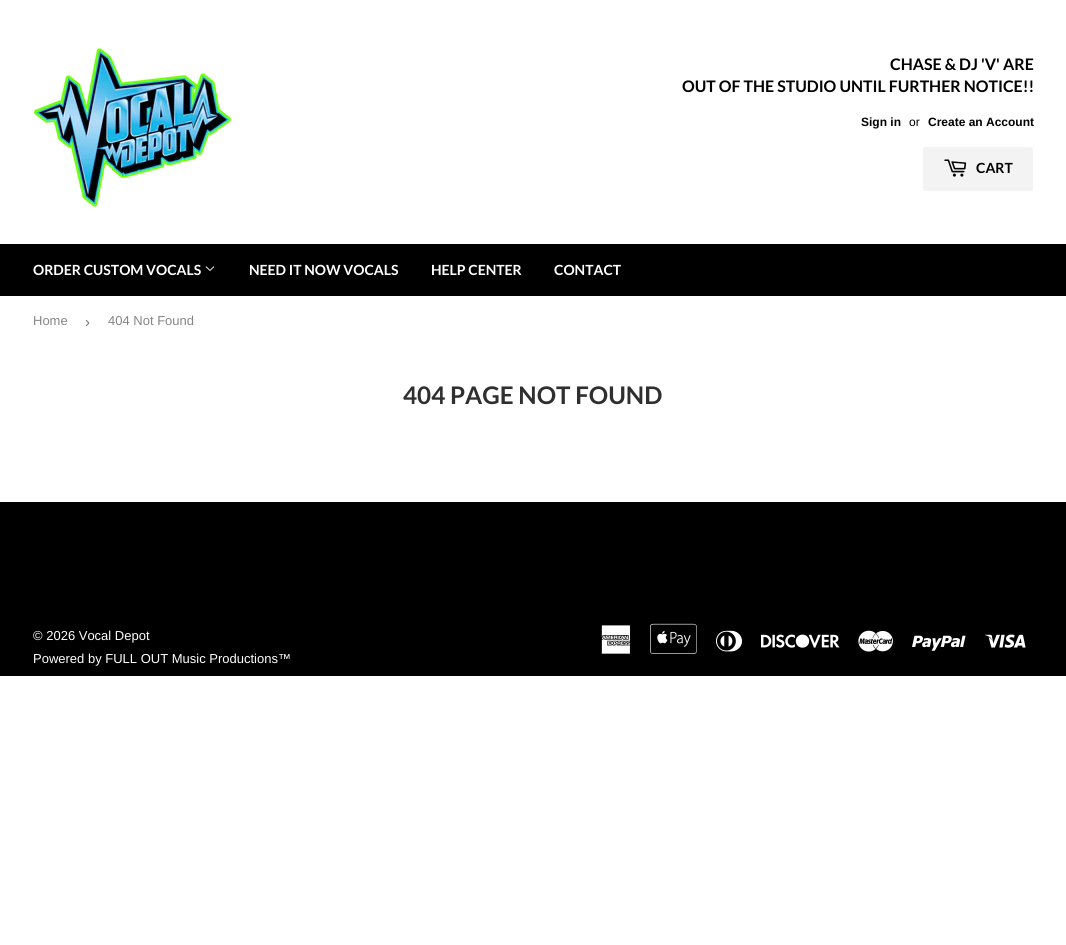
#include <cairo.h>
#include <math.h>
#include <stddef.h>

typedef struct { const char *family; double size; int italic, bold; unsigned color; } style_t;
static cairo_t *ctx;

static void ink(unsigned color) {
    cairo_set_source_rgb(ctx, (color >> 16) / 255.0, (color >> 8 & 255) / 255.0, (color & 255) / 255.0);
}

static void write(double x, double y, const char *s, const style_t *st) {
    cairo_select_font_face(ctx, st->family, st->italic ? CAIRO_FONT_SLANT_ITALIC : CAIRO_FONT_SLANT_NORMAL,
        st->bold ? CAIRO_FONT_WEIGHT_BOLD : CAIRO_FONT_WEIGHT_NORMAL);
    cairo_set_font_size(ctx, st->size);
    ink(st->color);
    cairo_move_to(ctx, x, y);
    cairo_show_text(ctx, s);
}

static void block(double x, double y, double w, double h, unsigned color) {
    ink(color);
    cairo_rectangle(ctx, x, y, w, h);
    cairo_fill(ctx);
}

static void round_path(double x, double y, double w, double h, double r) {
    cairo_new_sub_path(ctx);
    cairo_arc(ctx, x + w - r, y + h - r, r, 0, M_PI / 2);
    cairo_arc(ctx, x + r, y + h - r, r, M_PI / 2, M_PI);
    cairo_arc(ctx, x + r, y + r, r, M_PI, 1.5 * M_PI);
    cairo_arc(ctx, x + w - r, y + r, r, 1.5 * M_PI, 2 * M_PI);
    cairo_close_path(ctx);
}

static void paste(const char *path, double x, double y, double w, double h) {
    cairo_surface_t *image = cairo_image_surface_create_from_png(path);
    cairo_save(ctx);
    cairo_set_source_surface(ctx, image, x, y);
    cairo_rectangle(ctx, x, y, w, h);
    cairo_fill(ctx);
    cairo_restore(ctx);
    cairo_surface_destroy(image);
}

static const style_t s1 = {"Lato", 15.9, 0, 1, 0x000000};
static const style_t s2 = {"Liberation Sans", 12, 0, 1, 0x000000};
static const style_t s3 = {"Liberation Sans", 12, 0, 0, 0x000000};
static const style_t s4 = {"Lato", 14, 0, 1, 0x000000};
static const style_t s5 = {"Lato", 14, 0, 1, 0xffffff};
static const style_t s6 = {"Liberation Sans", 13, 0, 0, 0x858585};
static const style_t s7 = {"Liberation Sans", 15, 0, 0, 0x767676};
static const style_t s8 = {"Lato", 24.25, 0, 1, 0x2f2f2f};
static const style_t s9 = {"Liberation Sans", 13, 0, 0, 0xffffff};

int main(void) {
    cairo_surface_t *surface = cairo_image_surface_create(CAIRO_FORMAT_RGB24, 1066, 945);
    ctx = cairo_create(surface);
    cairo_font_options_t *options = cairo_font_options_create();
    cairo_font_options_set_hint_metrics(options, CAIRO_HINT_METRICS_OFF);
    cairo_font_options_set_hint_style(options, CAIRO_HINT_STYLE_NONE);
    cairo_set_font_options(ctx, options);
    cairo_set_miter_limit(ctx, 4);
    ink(0xffffff);
    cairo_paint(ctx);
    paste("pic1.png", 33, 48, 199, 159);
    write(890, 70, "CHASE & DJ 'V' ARE", &s1);
    write(682, 92, "OUT OF THE STUDIO UNTIL FURTHER NOTICE!!", &s1);
    write(861, 126, "Sign in", &s2);
    write(909, 126, "or", &s3);
    write(928, 126, "Create an Account", &s2);
    ink(0xf3f3f3);
    round_path(923, 147, 110, 44, 2);
    cairo_fill(ctx);
    paste("pic2.png", 944, 159, 23, 18);
    write(976, 173, "CART", &s4);
    block(0, 244, 1066, 52, 0x000000);
    write(33, 275, "ORDER CUSTOM VOCALS", &s5);
    paste("pic3.png", 205, 266, 10, 5);
    write(249, 275, "NEED IT NOW VOCALS", &s5);
    write(431, 275, "HELP CENTER", &s5);
    write(554, 275, "CONTACT", &s5);
    write(33, 325, "Home", &s6);
    write(85, 327, "›", &s7);
    write(108, 325, "404 Not Found", &s6);
    write(403, 404, "404 PAGE NOT FOUND", &s8);
    block(0, 502, 1066, 174, 0x000000);
    write(33, 640, "© 2026 Vocal Depot", &s9);
    write(33, 663, "Powered by FULL OUT Music Productions™", &s9);
    paste("pic4.png", 601, 625, 30, 29);
    paste("pic5.png", 650, 623, 47, 31);
    paste("pic6.png", 716, 630, 26, 22);
    paste("pic7.png", 761, 634, 79, 14);
    paste("pic8.png", 858, 630, 35, 22);
    paste("pic9.png", 912, 635, 54, 16);
    paste("pic10.png", 985, 634, 41, 14);
    cairo_surface_write_to_png(surface, "screenshot.png");
    cairo_font_options_destroy(options);
    cairo_destroy(ctx);
    cairo_surface_destroy(surface);
    return 0;
}
